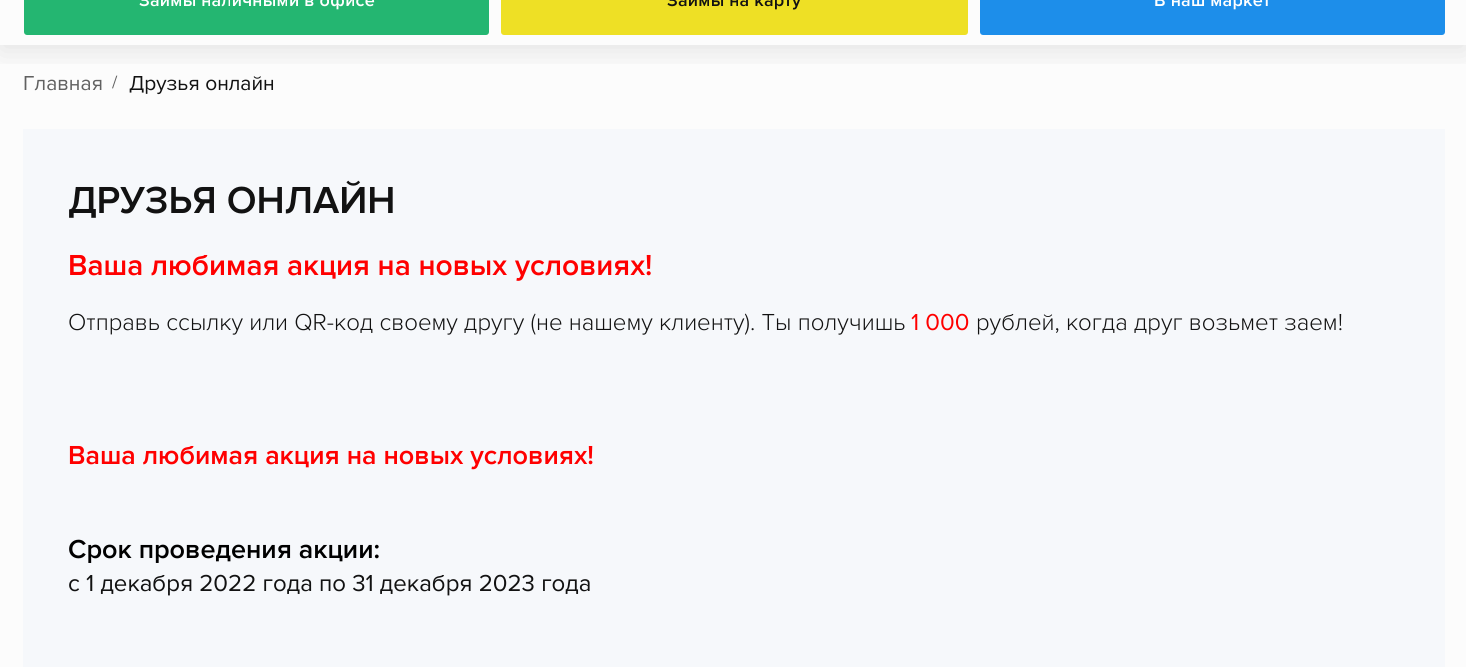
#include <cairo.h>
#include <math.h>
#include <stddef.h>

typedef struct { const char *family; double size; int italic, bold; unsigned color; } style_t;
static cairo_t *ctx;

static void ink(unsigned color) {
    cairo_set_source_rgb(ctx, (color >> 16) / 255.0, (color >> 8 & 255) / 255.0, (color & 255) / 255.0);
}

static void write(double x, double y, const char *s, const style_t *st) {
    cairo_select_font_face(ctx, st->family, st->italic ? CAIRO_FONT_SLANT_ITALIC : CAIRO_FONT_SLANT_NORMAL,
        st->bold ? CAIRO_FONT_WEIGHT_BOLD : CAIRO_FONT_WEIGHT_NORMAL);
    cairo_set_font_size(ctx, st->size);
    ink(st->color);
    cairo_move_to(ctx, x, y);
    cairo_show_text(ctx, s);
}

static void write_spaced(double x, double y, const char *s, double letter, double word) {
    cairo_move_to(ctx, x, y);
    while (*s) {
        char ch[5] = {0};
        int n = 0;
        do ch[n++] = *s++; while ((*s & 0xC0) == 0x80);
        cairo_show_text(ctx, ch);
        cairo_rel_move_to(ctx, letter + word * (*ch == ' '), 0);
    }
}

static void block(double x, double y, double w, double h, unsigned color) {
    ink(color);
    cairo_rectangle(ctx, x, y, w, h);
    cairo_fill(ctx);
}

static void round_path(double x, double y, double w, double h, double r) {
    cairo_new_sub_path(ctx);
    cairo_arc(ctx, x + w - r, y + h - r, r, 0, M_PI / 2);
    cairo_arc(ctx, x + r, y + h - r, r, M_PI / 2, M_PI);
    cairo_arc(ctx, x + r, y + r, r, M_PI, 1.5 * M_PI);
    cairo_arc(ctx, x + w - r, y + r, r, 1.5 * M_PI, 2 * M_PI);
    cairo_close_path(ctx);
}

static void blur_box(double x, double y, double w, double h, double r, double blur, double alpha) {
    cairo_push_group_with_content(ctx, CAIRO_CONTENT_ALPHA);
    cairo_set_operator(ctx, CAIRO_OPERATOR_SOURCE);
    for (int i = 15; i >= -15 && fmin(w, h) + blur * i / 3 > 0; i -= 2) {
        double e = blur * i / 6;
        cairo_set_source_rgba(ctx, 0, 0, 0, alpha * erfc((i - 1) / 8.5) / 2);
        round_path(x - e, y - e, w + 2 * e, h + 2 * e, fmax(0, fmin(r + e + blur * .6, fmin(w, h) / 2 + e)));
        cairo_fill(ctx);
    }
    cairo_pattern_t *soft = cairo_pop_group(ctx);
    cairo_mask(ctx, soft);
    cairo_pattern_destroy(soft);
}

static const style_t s1 = {"Proxima Nova", 21, 0, 0, 0x616161};
static const style_t s2 = {"Proxima Nova", 18, 0, 0, 0x616161};
static const style_t s3 = {"Proxima Nova", 21, 0, 0, 0x121212};
static const style_t s4 = {"Proxima Nova SemiBold", 39, 0, 0, 0x121212};
static const style_t s5 = {"Proxima Nova SemiBold", 30, 0, 0, 0xff0000};
static const style_t s6 = {"Proxima Nova Light", 24, 0, 0, 0x121212};
static const style_t s7 = {"Proxima Nova", 24, 0, 0, 0xff0000};
static const style_t s8 = {"Proxima Nova SemiBold", 27, 0, 0, 0xff0000};
static const style_t s9 = {"Proxima Nova SemiBold", 27, 0, 0, 0x000000};
static const style_t s10 = {"Proxima Nova", 24, 0, 0, 0x121212};

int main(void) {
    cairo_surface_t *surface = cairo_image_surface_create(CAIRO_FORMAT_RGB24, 1466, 667);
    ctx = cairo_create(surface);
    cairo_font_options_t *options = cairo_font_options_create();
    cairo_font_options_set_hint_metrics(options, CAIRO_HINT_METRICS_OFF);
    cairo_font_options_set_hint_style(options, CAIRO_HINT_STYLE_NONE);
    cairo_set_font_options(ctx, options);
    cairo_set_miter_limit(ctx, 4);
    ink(0xfcfcfc);
    cairo_paint(ctx);
    cairo_save(ctx);
    cairo_rectangle(ctx, 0, 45, 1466, 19);
    cairo_clip(ctx);
    ink(0x000000);
    blur_box(0, -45, 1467, 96, 0, 15, 0.1);
    cairo_restore(ctx);
    ink(0x24b671);
    round_path(24, -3, 465, 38, 3);
    cairo_fill(ctx);
    cairo_select_font_face(ctx, "Proxima Nova SemiBold", CAIRO_FONT_SLANT_NORMAL, CAIRO_FONT_WEIGHT_NORMAL);
    cairo_set_font_size(ctx, 18);
    ink(0xffffff);
    write_spaced(139, 6, "Займы наличными в офисе", 0.2, 0);
    ink(0xeee025);
    round_path(501, -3, 467, 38, 3);
    cairo_fill(ctx);
    ink(0x121212);
    write_spaced(667, 6, "Займы на карту", 0.2, 0);
    ink(0x1d8eea);
    round_path(980, -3, 465, 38, 3);
    cairo_fill(ctx);
    ink(0xffffff);
    write_spaced(1154, 6, "В наш маркет", 0.2, 0);
    write(23, 90, "Главная", &s1);
    write(112, 88, "/", &s2);
    write(129, 90, "Друзья онлайн", &s3);
    block(23, 129, 1422, 538, 0xf6f8fb);
    write(68, 213, "ДРУЗЬЯ ОНЛАЙН", &s4);
    write(68, 275, "Ваша любимая акция на новых условиях!", &s5);
    write(68, 330, "Отправь ссылку или QR-код своему другу (не нашему клиенту). Ты получишь", &s6);
    write(911, 330, "1 000", &s7);
    write(976, 330, "рублей, когда друг возьмет заем!", &s6);
    write(68, 464, "Ваша любимая акция на новых условиях!", &s8);
    write(68, 558, "Срок проведения акции:", &s9);
    write(68, 591, "c 1 декабря 2022 года по 31 декабря 2023 года", &s10);
    cairo_surface_write_to_png(surface, "screenshot.png");
    cairo_font_options_destroy(options);
    cairo_destroy(ctx);
    cairo_surface_destroy(surface);
    return 0;
}
